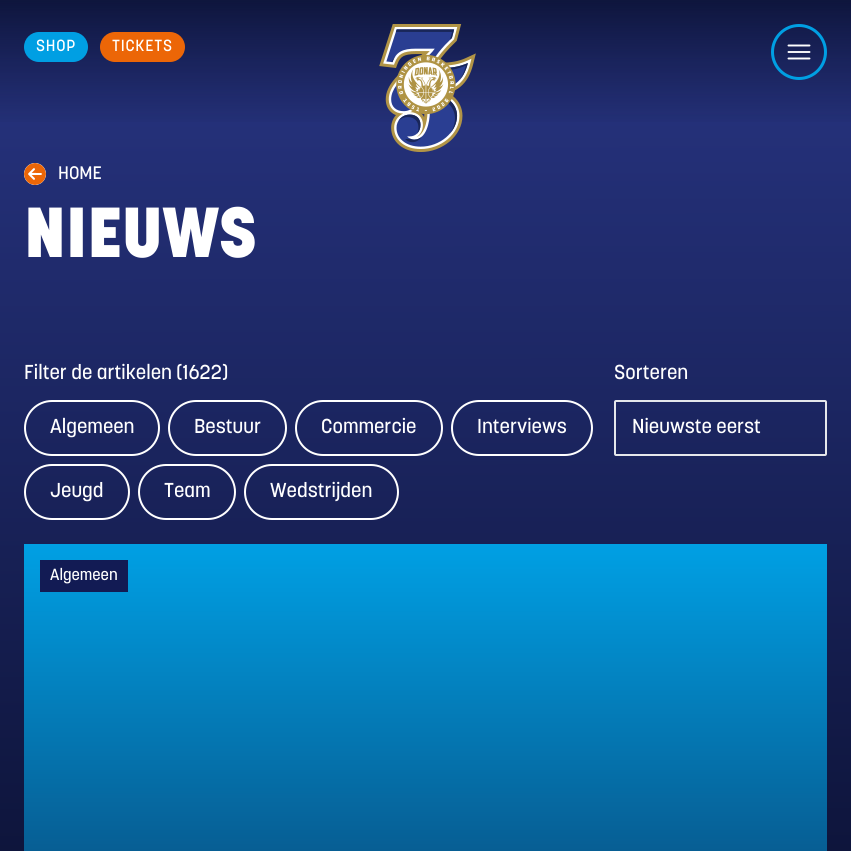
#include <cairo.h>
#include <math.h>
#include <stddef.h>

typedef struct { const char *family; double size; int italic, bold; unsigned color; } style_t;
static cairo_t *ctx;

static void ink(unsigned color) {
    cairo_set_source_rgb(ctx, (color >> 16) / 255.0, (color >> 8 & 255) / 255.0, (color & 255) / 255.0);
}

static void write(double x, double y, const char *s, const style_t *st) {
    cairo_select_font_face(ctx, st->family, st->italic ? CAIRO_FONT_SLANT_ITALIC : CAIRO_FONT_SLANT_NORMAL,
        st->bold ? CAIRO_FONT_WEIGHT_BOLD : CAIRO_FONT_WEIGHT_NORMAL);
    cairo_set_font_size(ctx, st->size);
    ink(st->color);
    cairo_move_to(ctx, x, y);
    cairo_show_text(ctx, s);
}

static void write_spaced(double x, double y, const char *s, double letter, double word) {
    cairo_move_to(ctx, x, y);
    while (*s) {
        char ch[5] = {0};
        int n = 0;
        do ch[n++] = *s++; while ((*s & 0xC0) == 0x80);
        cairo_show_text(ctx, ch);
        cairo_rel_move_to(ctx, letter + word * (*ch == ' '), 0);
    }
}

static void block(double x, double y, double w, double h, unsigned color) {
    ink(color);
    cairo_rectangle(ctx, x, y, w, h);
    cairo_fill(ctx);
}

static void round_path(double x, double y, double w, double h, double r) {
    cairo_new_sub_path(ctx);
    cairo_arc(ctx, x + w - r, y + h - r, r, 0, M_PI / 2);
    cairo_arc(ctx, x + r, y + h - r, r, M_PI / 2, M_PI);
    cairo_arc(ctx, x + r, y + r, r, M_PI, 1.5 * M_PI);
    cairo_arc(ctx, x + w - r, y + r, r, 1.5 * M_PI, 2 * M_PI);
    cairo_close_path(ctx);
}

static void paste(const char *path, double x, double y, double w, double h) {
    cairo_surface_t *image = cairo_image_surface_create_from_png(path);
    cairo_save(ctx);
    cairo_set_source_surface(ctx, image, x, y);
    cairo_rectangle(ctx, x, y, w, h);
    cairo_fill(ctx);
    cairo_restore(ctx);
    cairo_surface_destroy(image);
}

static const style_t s1 = {"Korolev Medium", 18, 0, 0, 0xffffff};
static const style_t s2 = {"Korolev Black", 70, 0, 0, 0xffffff};
static const style_t s3 = {"Korolev Medium", 20, 0, 0, 0xffffff};
static const style_t s4 = {"Korolev Medium", 16, 0, 0, 0xffffff};

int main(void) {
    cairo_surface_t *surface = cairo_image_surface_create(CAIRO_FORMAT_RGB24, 851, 851);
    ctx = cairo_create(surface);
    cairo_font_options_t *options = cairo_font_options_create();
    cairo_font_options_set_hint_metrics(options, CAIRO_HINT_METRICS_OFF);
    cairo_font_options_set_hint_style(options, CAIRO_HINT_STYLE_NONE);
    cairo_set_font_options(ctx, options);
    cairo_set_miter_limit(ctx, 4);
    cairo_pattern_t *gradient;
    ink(0xffffff);
    cairo_paint(ctx);
    gradient = cairo_pattern_create_linear(425, 0, 426, 851);
    cairo_pattern_add_color_stop_rgba(gradient, 0, 0.157, 0.208, 0.514, 1);
    cairo_pattern_add_color_stop_rgba(gradient, 1, 0.055, 0.082, 0.235, 1);
    cairo_set_source(ctx, gradient);
    cairo_pattern_destroy(gradient);
    cairo_rectangle(ctx, 0, 1, 851, 850);
    cairo_fill(ctx);
    gradient = cairo_pattern_create_linear(426, 0, 426, 128);
    cairo_pattern_add_color_stop_rgba(gradient, 0, 0.055, 0.082, 0.235, 1);
    cairo_pattern_add_color_stop_rgba(gradient, 1, 0.055, 0.082, 0.235, 0);
    cairo_set_source(ctx, gradient);
    cairo_pattern_destroy(gradient);
    cairo_rectangle(ctx, 0, 0, 851, 122);
    cairo_fill(ctx);
    ink(0x009fe3);
    round_path(24, 32, 64, 30, 15);
    cairo_fill(ctx);
    cairo_select_font_face(ctx, "Korolev Medium", CAIRO_FONT_SLANT_NORMAL, CAIRO_FONT_WEIGHT_NORMAL);
    cairo_set_font_size(ctx, 16);
    ink(0xffffff);
    write_spaced(36, 51, "SHOP", 0.75, 0);
    ink(0xec6607);
    round_path(100, 32, 85, 30, 15);
    cairo_fill(ctx);
    ink(0xffffff);
    write_spaced(112, 51, "TICKETS", 0.75, 0);
    paste("pic1.png", 379, 24, 97, 128);
    cairo_arc(ctx, 799, 52, 26.5, 0, 2 * M_PI);
    ink(0x009fe3);
    cairo_set_line_width(ctx, 3);
    cairo_stroke(ctx);
    cairo_new_path(ctx);
    cairo_move_to(ctx, 788.5, 45.5);
    cairo_line_to(ctx, 809.5, 45.5);
    cairo_move_to(ctx, 788.5, 52);
    cairo_line_to(ctx, 809.5, 52);
    cairo_move_to(ctx, 788.5, 58.5);
    cairo_line_to(ctx, 809.5, 58.5);
    ink(0xffffff);
    cairo_set_line_width(ctx, 1.9);
    cairo_set_line_cap(ctx, CAIRO_LINE_CAP_ROUND);
    cairo_set_line_join(ctx, CAIRO_LINE_JOIN_ROUND);
    cairo_stroke(ctx);
    cairo_arc(ctx, 35, 174, 11, 0, 2 * M_PI);
    cairo_fill(ctx);
    paste("pic2.png", 24, 163, 22, 22);
    write(58, 179, "HOME", &s1);
    write(24, 257, "NIEUWS", &s2);
    write(24, 379, "Filter de artikelen (1622)", &s3);
    round_path(25, 401, 134, 54, 27);
    cairo_set_line_width(ctx, 2);
    cairo_set_line_cap(ctx, CAIRO_LINE_CAP_BUTT);
    cairo_set_line_join(ctx, CAIRO_LINE_JOIN_MITER);
    cairo_stroke(ctx);
    write(50, 433, "Algemeen", &s3);
    round_path(169, 401, 117, 54, 27);
    cairo_stroke(ctx);
    write(194, 433, "Bestuur", &s3);
    round_path(296, 401, 146, 54, 27);
    cairo_stroke(ctx);
    write(321, 433, "Commercie", &s3);
    round_path(452, 401, 140, 54, 27);
    cairo_stroke(ctx);
    write(477, 433, "Interviews", &s3);
    round_path(25, 465, 104, 54, 27);
    cairo_stroke(ctx);
    write(50, 497, "Jeugd", &s3);
    round_path(139, 465, 96, 54, 27);
    cairo_stroke(ctx);
    write(164, 497, "Team", &s3);
    round_path(245, 465, 153, 54, 27);
    cairo_stroke(ctx);
    write(270, 497, "Wedstrijden", &s3);
    write(614, 379, "Sorteren", &s3);
    round_path(615, 401, 211, 54, 1);
    ink(0xe5e7eb);
    cairo_stroke(ctx);
    write(632, 433, "Nieuwste eerst", &s3);
    gradient = cairo_pattern_create_linear(426, 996, 426, 544);
    cairo_pattern_add_color_stop_rgba(gradient, 0, 0.039, 0.247, 0.431, 1);
    cairo_pattern_add_color_stop_rgba(gradient, 1, 0, 0.627, 0.894, 1);
    cairo_set_source(ctx, gradient);
    cairo_pattern_destroy(gradient);
    cairo_rectangle(ctx, 24, 544, 803, 307);
    cairo_fill(ctx);
    block(40, 560, 88, 32, 0x121b54);
    write(50, 580, "Algemeen", &s4);
    cairo_surface_write_to_png(surface, "screenshot.png");
    cairo_font_options_destroy(options);
    cairo_destroy(ctx);
    cairo_surface_destroy(surface);
    return 0;
}
